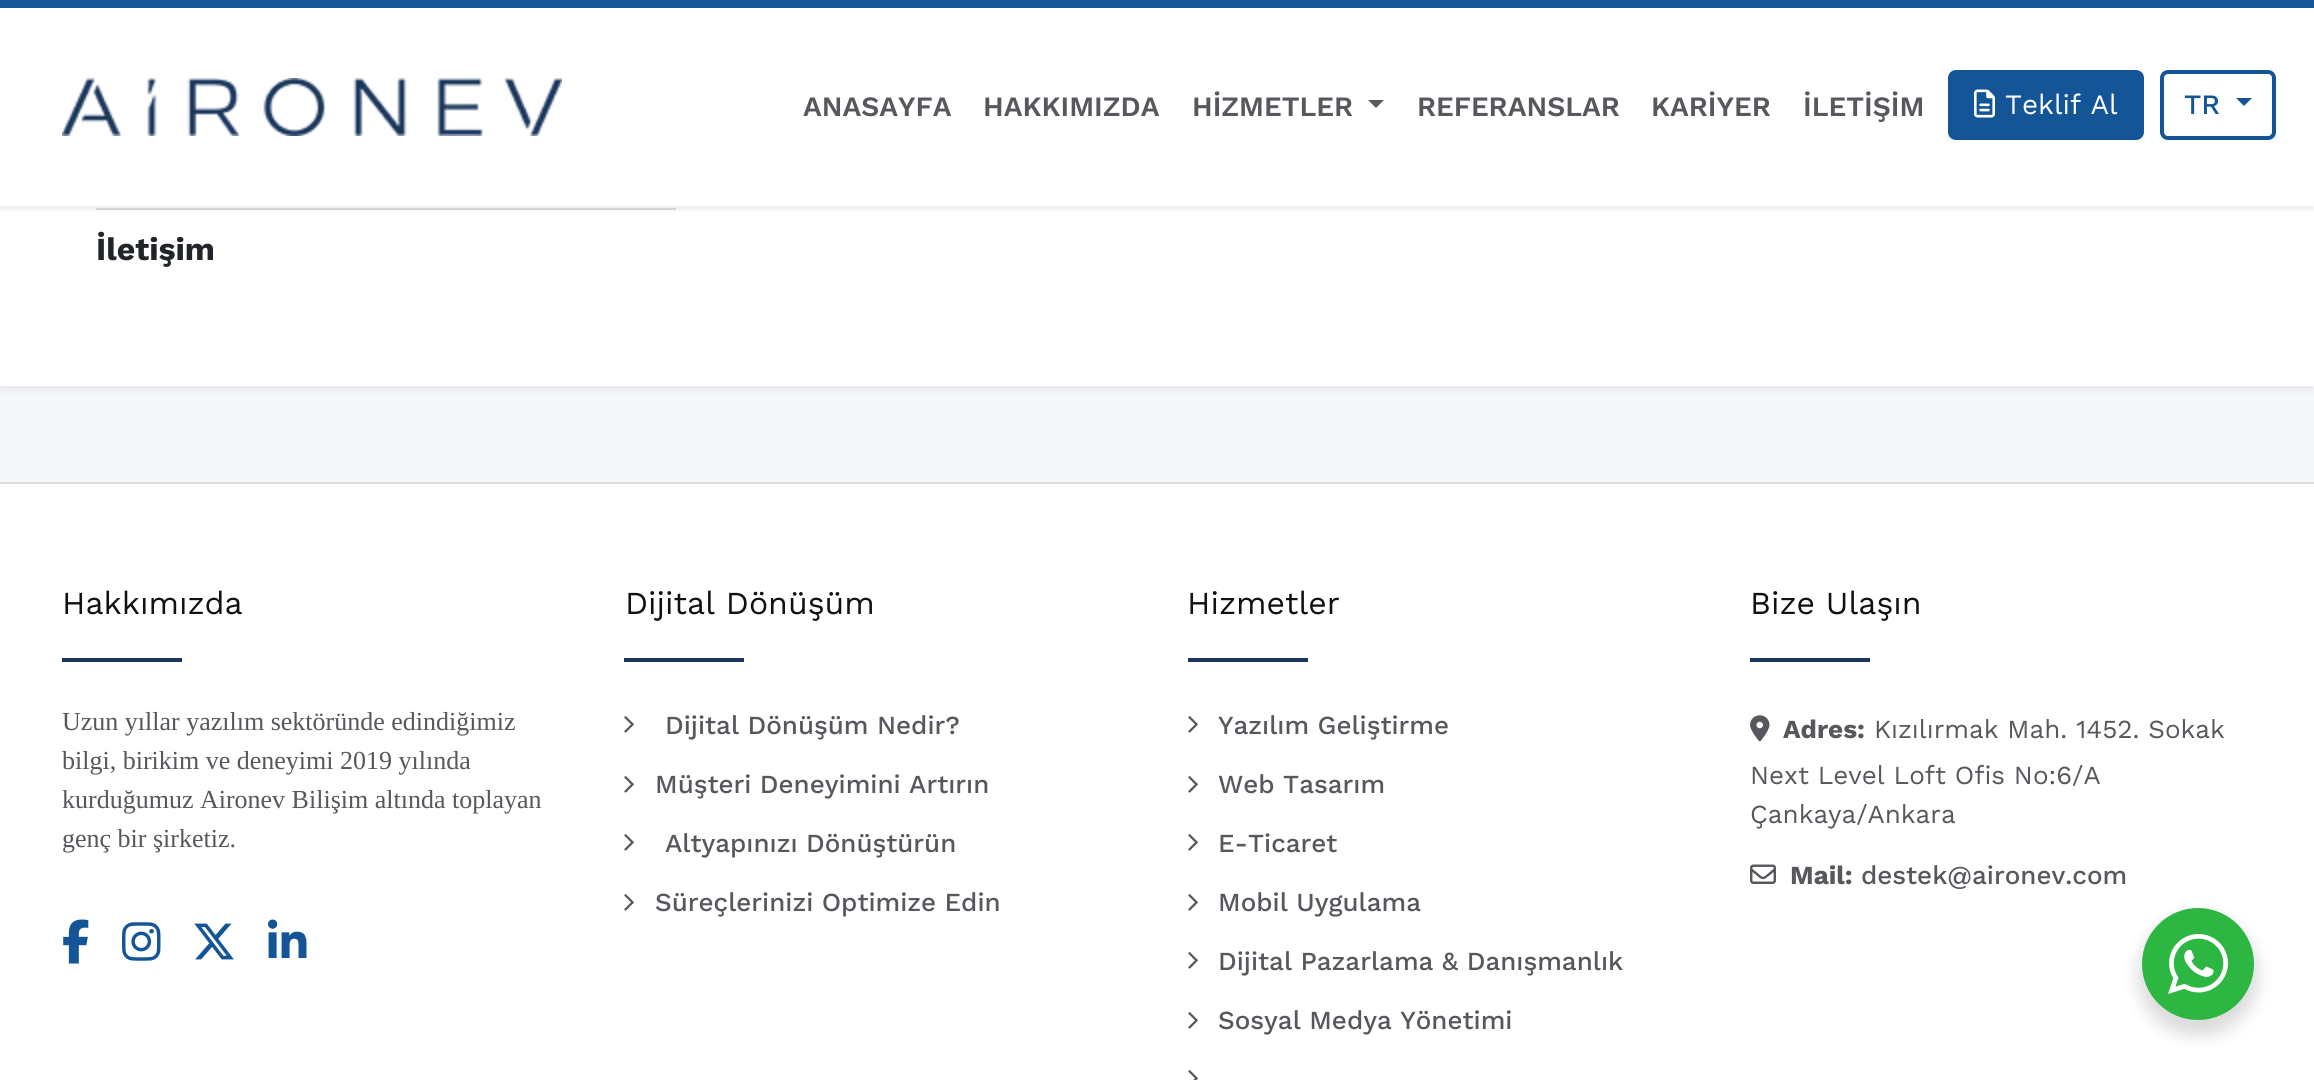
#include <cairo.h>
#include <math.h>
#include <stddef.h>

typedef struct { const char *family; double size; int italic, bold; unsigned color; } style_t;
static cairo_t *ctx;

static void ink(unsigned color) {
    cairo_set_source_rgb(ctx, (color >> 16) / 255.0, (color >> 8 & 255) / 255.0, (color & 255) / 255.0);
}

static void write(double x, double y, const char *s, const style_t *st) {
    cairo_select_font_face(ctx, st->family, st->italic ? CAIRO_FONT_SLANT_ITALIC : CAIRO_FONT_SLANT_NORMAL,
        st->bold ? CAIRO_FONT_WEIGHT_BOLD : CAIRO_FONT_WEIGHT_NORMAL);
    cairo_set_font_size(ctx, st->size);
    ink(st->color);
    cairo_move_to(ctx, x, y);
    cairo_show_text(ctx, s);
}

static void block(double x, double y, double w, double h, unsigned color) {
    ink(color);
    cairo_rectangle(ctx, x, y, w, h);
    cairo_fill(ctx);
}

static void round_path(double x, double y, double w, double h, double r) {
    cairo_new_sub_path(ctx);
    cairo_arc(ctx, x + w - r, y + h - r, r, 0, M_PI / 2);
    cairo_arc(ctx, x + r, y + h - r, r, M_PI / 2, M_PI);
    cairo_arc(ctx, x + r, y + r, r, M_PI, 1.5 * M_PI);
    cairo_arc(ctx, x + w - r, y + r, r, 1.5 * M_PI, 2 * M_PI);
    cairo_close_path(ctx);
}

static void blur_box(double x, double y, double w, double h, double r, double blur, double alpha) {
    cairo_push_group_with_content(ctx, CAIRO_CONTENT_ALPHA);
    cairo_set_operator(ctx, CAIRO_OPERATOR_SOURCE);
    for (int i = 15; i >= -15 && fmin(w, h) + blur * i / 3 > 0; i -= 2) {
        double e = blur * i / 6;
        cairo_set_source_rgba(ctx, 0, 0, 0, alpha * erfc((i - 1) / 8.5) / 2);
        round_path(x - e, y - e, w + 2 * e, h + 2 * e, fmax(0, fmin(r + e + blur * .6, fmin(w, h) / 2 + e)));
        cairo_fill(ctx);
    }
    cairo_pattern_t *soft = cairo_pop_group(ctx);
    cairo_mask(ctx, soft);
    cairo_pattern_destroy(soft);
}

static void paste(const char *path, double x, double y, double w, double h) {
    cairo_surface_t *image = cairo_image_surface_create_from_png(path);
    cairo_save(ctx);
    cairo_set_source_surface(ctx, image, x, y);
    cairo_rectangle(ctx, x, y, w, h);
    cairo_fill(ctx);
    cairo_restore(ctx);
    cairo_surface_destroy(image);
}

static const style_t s1 = {"Work Sans SemiBold", 28, 0, 0, 0x56585d};
static const style_t s2 = {"Work Sans", 28, 0, 0, 0xffffff};
static const style_t s3 = {"Work Sans Medium", 28, 0, 0, 0x135596};
static const style_t s4 = {"Work Sans", 32, 0, 1, 0x212529};
static const style_t s5 = {"Work Sans", 32, 0, 0, 0x111111};
static const style_t s6 = {"Liberation Serif", 26, 0, 0, 0x56585d};
static const style_t s7 = {"Work Sans Medium", 26, 0, 0, 0x56585d};
static const style_t s8 = {"Work Sans", 26, 0, 1, 0x56585d};
static const style_t s9 = {"Work Sans", 26, 0, 0, 0x56585d};

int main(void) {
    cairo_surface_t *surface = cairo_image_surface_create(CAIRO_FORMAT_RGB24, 2314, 1080);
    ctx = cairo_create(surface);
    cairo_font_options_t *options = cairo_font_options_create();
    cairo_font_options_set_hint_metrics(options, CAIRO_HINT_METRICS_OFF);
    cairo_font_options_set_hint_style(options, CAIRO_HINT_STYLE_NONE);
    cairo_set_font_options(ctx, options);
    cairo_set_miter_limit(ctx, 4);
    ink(0xf5f7fa);
    cairo_paint(ctx);
    ink(0x000000);
    blur_box(0, -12, 2314, 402, 0, 4, 0.07);
    block(0, 206, 2314, 180, 0xffffff);
    block(96, 208, 580, 2, 0xdfdfdf);
    ink(0x000000);
    blur_box(0, 4, 2314, 206, 0, 2, 0.07);
    block(0, 8, 2314, 198, 0xffffff);
    block(0, 0, 2314, 8, 0x135596);
    paste("pic1.png", 62, 78, 500, 58);
    write(803, 116, "ANASAYFA", &s1);
    write(983, 116, "HAKKIMIZDA", &s1);
    write(1192, 116, "HİZMETLER", &s1);
    ink(0x595959);
    cairo_new_path(ctx);
    cairo_move_to(ctx, 1368, 100);
    cairo_line_to(ctx, 1384, 100);
    cairo_line_to(ctx, 1376, 108);
    cairo_close_path(ctx);
    cairo_fill(ctx);
    write(1417, 116, "REFERANSLAR", &s1);
    write(1651, 116, "KARİYER", &s1);
    write(1803, 116, "İLETİŞİM", &s1);
    ink(0x135596);
    round_path(1949, 71, 194, 68, 7);
    cairo_fill_preserve(ctx);
    cairo_stroke(ctx);
    paste("pic2.png", 1974, 89, 21, 29);
    write(2005, 114, "Teklif Al", &s2);
    round_path(2162, 72, 112, 66, 6);
    ink(0x135596);
    cairo_set_line_width(ctx, 4);
    cairo_stroke(ctx);
    write(2184, 114, "TR", &s3);
    cairo_new_path(ctx);
    cairo_move_to(ctx, 2236, 98);
    cairo_line_to(ctx, 2252, 98);
    cairo_line_to(ctx, 2244, 106);
    cairo_close_path(ctx);
    cairo_fill(ctx);
    write(96, 260, "İletişim", &s4);
    block(0, 484, 2314, 596, 0xffffff);
    block(0, 482, 2314, 2, 0xdddddd);
    write(62, 614, "Hakkımızda", &s5);
    block(62, 658, 120, 4, 0x1b365d);
    write(62, 730, "Uzun yıllar yazılım sektöründe edindiğimiz", &s6);
    write(62, 769, "bilgi, birikim ve deneyimi 2019 yılında", &s6);
    write(62, 808, "kurduğumuz Aironev Bilişim altında toplayan", &s6);
    write(62, 847, "genç bir şirketiz.", &s6);
    paste("pic3.png", 63, 919, 26, 45);
    paste("pic4.png", 122, 922, 39, 39);
    paste("pic5.png", 194, 923, 40, 37);
    paste("pic6.png", 268, 919, 39, 39);
    write(625, 614, "Dijital Dönüşüm", &s5);
    block(624, 658, 120, 4, 0x1b365d);
    paste("pic7.png", 624, 716, 10, 17);
    write(665, 734, "Dijital Dönüşüm Nedir?", &s7);
    paste("pic7.png", 624, 776, 10, 17);
    write(655, 793, "Müşteri Deneyimini Artırın", &s7);
    paste("pic7.png", 624, 834, 10, 17);
    write(665, 852, "Altyapınızı Dönüştürün", &s7);
    paste("pic7.png", 624, 894, 10, 17);
    write(655, 911, "Süreçlerinizi Optimize Edin", &s7);
    write(1187, 614, "Hizmetler", &s5);
    block(1188, 658, 120, 4, 0x1b365d);
    paste("pic7.png", 1188, 716, 10, 17);
    write(1218, 734, "Yazılım Geliştirme", &s7);
    paste("pic7.png", 1188, 776, 10, 17);
    write(1218, 793, "Web Tasarım", &s7);
    paste("pic7.png", 1188, 834, 10, 17);
    write(1218, 852, "E-Ticaret", &s7);
    paste("pic7.png", 1188, 894, 10, 17);
    write(1218, 911, "Mobil Uygulama", &s7);
    paste("pic7.png", 1188, 952, 10, 17);
    write(1218, 970, "Dijital Pazarlama & Danışmanlık", &s7);
    paste("pic7.png", 1188, 1012, 10, 17);
    write(1218, 1029, "Sosyal Medya Yönetimi", &s7);
    paste("pic8.png", 1188, 1070, 10, 10);
    write(1750, 614, "Bize Ulaşın", &s5);
    block(1750, 658, 120, 4, 0x1b365d);
    paste("pic9.png", 1750, 715, 20, 27);
    write(1783, 738, "Adres:", &s8);
    write(1874, 738, "Kızılırmak Mah. 1452. Sokak", &s9);
    write(1750, 784, "Next Level Loft Ofis No:6/A", &s9);
    write(1750, 823, "Çankaya/Ankara", &s9);
    paste("pic10.png", 1750, 864, 26, 20);
    write(1790, 884, "Mail:", &s8);
    write(1861, 884, "destek@aironev.com", &s7);
    ink(0x000000);
    blur_box(2138, 916, 120, 120, 60, 8, 0.14);
    ink(0x2db742);
    cairo_arc(ctx, 2198, 964, 56, 0, 2 * M_PI);
    cairo_fill(ctx);
    paste("pic11.png", 2168, 934, 60, 60);
    cairo_surface_write_to_png(surface, "screenshot.png");
    cairo_font_options_destroy(options);
    cairo_destroy(ctx);
    cairo_surface_destroy(surface);
    return 0;
}
